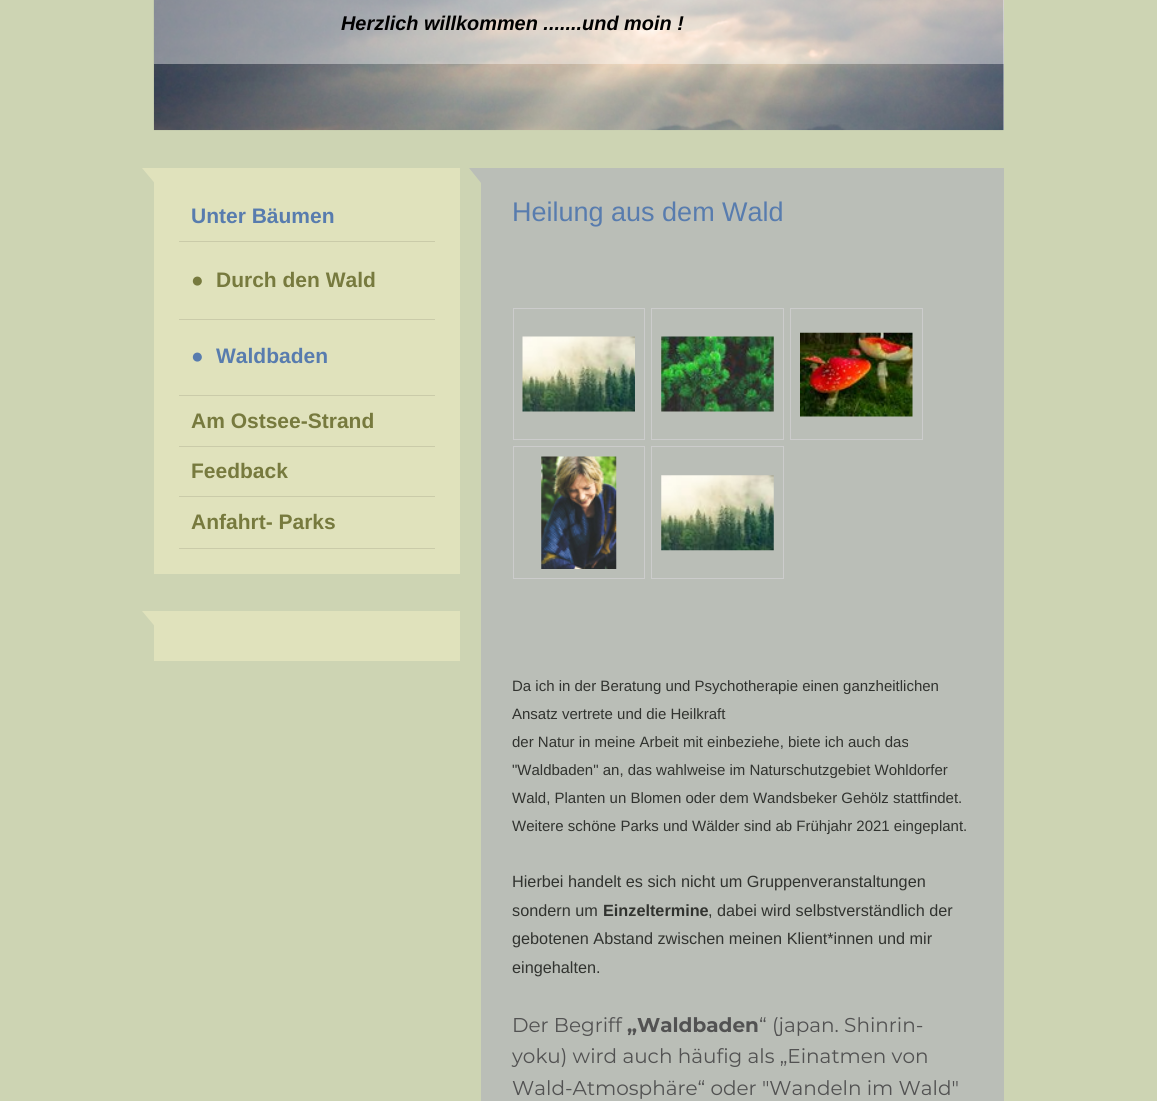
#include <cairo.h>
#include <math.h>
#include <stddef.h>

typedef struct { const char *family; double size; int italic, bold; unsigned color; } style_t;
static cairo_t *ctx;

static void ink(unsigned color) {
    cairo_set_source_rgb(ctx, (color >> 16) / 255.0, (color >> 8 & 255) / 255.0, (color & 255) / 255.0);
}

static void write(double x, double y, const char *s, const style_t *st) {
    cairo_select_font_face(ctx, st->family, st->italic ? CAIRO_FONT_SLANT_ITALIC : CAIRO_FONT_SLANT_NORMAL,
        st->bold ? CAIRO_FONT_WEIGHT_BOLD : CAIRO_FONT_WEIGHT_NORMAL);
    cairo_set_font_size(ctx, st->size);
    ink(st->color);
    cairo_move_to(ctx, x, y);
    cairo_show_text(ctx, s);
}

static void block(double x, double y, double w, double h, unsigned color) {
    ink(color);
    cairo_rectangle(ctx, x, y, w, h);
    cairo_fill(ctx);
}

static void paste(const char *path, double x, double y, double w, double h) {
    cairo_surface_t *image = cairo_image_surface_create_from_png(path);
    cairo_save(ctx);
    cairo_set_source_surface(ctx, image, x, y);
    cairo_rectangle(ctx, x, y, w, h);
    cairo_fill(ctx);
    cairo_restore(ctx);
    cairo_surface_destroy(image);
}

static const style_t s1 = {"Liberation Sans", 19.9, 1, 1, 0x000000};
static const style_t s2 = {"Liberation Sans", 21, 0, 1, 0x587cae};
static const style_t s3 = {"Liberation Sans", 21, 0, 1, 0x777a3e};
static const style_t s4 = {"Liberation Sans", 27, 0, 0, 0x587cae};
static const style_t s5 = {"Liberation Sans", 15, 0, 0, 0x31332f};
static const style_t s6 = {"Liberation Sans", 16.25, 0, 0, 0x31332f};
static const style_t s7 = {"Liberation Sans", 16.25, 0, 1, 0x31332f};
static const style_t s8 = {"Montserrat", 20, 0, 0, 0x525252};
static const style_t s9 = {"Montserrat", 20, 0, 1, 0x525252};

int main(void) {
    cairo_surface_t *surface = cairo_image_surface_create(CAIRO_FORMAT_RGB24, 1157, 1101);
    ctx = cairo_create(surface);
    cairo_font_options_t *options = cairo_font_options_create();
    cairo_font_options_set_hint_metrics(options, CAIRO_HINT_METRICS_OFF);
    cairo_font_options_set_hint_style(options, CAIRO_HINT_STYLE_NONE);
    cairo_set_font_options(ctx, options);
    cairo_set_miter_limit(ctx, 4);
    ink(0xcdd4b3);
    cairo_paint(ctx);
    block(1003, 0, 1, 130, 0xeeeeee);
    paste("pic1.png", 153, 0, 851, 131);
    cairo_set_source_rgba(ctx, 1, 1, 1, 0.4);
    cairo_rectangle(ctx, 154, 0, 850, 64);
    cairo_fill(ctx);
    write(341, 30, "Herzlich willkommen .......und moin !", &s1);
    block(154, 168, 306, 406, 0xe0e2bc);
    cairo_new_path(ctx);
    cairo_move_to(ctx, 142, 168);
    cairo_line_to(ctx, 192, 168);
    cairo_line_to(ctx, 168, 199);
    cairo_close_path(ctx);
    cairo_fill(ctx);
    block(179, 241, 256, 1, 0xcacba9);
    write(191, 223, "Unter Bäumen", &s2);
    block(179, 319, 256, 1, 0xcacba9);
    write(191, 287, "●", &s3);
    write(216, 287, "Durch den Wald", &s3);
    block(179, 395, 256, 1, 0xcacba9);
    write(191, 363, "●", &s2);
    write(216, 363, "Waldbaden", &s2);
    block(179, 446, 256, 1, 0xcacba9);
    write(191, 428, "Am Ostsee-Strand", &s3);
    block(179, 496, 256, 1, 0xcacba9);
    write(191, 478, "Feedback", &s3);
    block(179, 548, 256, 1, 0xcacba9);
    write(191, 529, "Anfahrt- Parks", &s3);
    block(154, 611, 306, 50, 0xe0e2bc);
    cairo_new_path(ctx);
    cairo_move_to(ctx, 142, 611);
    cairo_line_to(ctx, 192, 611);
    cairo_line_to(ctx, 168, 642);
    cairo_close_path(ctx);
    cairo_fill(ctx);
    block(481, 168, 523, 933, 0xbabeb7);
    cairo_new_path(ctx);
    cairo_move_to(ctx, 469, 168);
    cairo_line_to(ctx, 519, 168);
    cairo_line_to(ctx, 494, 199);
    cairo_close_path(ctx);
    cairo_fill(ctx);
    write(512, 221, "Heilung aus dem Wald", &s4);
    cairo_rectangle(ctx, 513.5, 308.5, 131, 131);
    ink(0xcccccc);
    cairo_set_line_width(ctx, 1);
    cairo_stroke(ctx);
    paste("pic2.png", 522, 336, 113, 76);
    cairo_rectangle(ctx, 651.5, 308.5, 132, 131);
    cairo_stroke(ctx);
    paste("pic3.png", 661, 336, 113, 76);
    cairo_rectangle(ctx, 790.5, 308.5, 132, 131);
    cairo_stroke(ctx);
    paste("pic4.png", 800, 332, 113, 85);
    cairo_rectangle(ctx, 513.5, 446.5, 131, 132);
    cairo_stroke(ctx);
    paste("pic5.png", 541, 456, 76, 113);
    cairo_rectangle(ctx, 651.5, 446.5, 132, 132);
    cairo_stroke(ctx);
    paste("pic6.png", 661, 475, 113, 76);
    write(512, 691, "Da ich in der Beratung und Psychotherapie einen ganzheitlichen", &s5);
    write(512, 719, "Ansatz vertrete und die Heilkraft", &s5);
    write(512, 747, "der Natur in meine Arbeit mit einbeziehe, biete ich auch das", &s5);
    write(512, 775, "\"Waldbaden\" an, das wahlweise im Naturschutzgebiet Wohldorfer", &s5);
    write(512, 803, "Wald, Planten un Blomen oder dem Wandsbeker Gehölz stattfindet.", &s5);
    write(512, 831, "Weitere schöne Parks und Wälder sind ab Frühjahr 2021 eingeplant.", &s5);
    write(512, 887, "Hierbei handelt es sich nicht um Gruppenveranstaltungen", &s6);
    write(512, 916, "sondern um", &s6);
    write(603, 916, "Einzeltermine", &s7);
    write(708, 916, ", dabei wird selbstverständlich der", &s6);
    write(512, 944, "gebotenen Abstand zwischen meinen Klient*innen und mir", &s6);
    write(512, 973, "eingehalten.", &s6);
    write(512, 1032, "Der Begriff", &s8);
    write(627, 1032, "„Waldbaden", &s9);
    write(759, 1032, "“ (japan. Shinrin-", &s8);
    write(512, 1063, "yoku) wird auch häufig als „Einatmen von", &s8);
    write(512, 1095, "Wald-Atmosphäre“ oder \"Wandeln im Wald\"", &s8);
    cairo_surface_write_to_png(surface, "screenshot.png");
    cairo_font_options_destroy(options);
    cairo_destroy(ctx);
    cairo_surface_destroy(surface);
    return 0;
}
